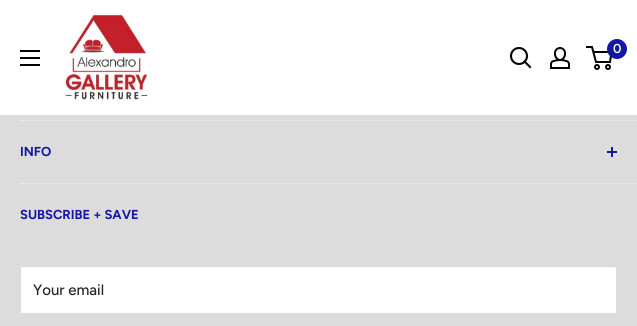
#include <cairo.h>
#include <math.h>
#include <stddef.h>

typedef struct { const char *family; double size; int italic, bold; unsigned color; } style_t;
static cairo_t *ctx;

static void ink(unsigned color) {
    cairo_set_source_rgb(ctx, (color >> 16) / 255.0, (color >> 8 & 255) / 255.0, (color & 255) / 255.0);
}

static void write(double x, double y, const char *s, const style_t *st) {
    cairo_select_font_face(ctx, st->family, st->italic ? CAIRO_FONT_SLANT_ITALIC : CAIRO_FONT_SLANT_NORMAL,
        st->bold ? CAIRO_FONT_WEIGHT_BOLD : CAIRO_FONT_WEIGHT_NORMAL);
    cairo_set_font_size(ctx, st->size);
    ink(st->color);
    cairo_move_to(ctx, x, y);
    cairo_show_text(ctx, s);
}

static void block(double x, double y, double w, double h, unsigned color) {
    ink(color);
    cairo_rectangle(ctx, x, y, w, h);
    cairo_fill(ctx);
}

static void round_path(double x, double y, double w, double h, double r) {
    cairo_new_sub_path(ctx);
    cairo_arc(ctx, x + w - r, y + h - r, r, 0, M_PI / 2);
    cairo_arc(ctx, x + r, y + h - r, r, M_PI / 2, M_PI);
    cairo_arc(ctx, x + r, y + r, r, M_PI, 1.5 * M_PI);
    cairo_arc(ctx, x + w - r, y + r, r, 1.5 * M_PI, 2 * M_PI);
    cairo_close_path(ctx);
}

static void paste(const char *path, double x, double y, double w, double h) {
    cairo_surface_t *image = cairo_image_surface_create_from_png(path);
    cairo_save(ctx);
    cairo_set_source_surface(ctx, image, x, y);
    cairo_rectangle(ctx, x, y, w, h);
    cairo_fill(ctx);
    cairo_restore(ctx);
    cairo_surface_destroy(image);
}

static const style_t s1 = {"Figtree SemiBold", 13, 0, 0, 0xffffff};
static const style_t s2 = {"Figtree", 13, 0, 1, 0x1517a4};
static const style_t s3 = {"Figtree Medium", 15, 0, 0, 0x272728};

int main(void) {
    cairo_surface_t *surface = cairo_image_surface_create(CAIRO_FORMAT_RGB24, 637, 326);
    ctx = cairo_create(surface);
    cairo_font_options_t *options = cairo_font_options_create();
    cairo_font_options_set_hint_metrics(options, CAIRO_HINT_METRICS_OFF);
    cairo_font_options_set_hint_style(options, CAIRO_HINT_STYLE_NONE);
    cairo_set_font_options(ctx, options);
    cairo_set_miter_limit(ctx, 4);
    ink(0xdcdcdc);
    cairo_paint(ctx);
    block(0, 0, 637, 115, 0xffffff);
    paste("pic1.png", 65, 13, 83, 87);
    cairo_new_path(ctx);
    cairo_move_to(ctx, 530, 67);
    cairo_line_to(ctx, 524.5, 61.5);
    ink(0x030303);
    cairo_set_line_width(ctx, 2.1);
    cairo_set_line_cap(ctx, CAIRO_LINE_CAP_SQUARE);
    cairo_stroke(ctx);
    cairo_arc(ctx, 519, 56, 8, 0, 2 * M_PI);
    cairo_set_line_cap(ctx, CAIRO_LINE_CAP_BUTT);
    cairo_stroke(ctx);
    paste("pic2.png", 550, 47, 20, 22);
    cairo_arc(ctx, 597, 67, 2, 0, 2 * M_PI);
    cairo_set_line_width(ctx, 2);
    cairo_stroke(ctx);
    cairo_arc(ctx, 608, 67, 2, 0, 2 * M_PI);
    cairo_stroke(ctx);
    cairo_new_path(ctx);
    cairo_move_to(ctx, 593.5, 52);
    cairo_line_to(ctx, 611.5, 52);
    cairo_line_to(ctx, 610, 62);
    cairo_line_to(ctx, 596, 62);
    cairo_line_to(ctx, 592, 47);
    cairo_line_to(ctx, 586, 47);
    cairo_stroke(ctx);
    ink(0x1517a4);
    cairo_arc(ctx, 617, 49, 10, 0, 2 * M_PI);
    cairo_fill(ctx);
    write(613, 53, "0", &s1);
    paste("pic3.png", 20, 50, 20, 16);
    block(20, 120, 617, 1, 0xe8e8e8);
    block(20, 183, 617, 1, 0xe8e8e8);
    write(20, 156, "INFO", &s2);
    block(611, 147, 2, 10, 0x1517a4);
    block(607, 151, 10, 2, 0x1517a4);
    write(20, 219, "SUBSCRIBE + SAVE", &s2);
    ink(0xffffff);
    round_path(20, 266, 597, 48, 2);
    cairo_fill(ctx);
    ink(0xf9f9f9);
    cairo_new_path(ctx);
    cairo_move_to(ctx, 22, 268);
    cairo_line_to(ctx, 615, 268);
    cairo_curve_to(ctx, 616, 268, 616, 268, 616, 269);
    cairo_curve_to(ctx, 616, 268, 616, 267, 615, 267);
    cairo_line_to(ctx, 22, 267);
    cairo_line_to(ctx, 21, 268);
    cairo_line_to(ctx, 21, 269);
    cairo_curve_to(ctx, 21, 268, 21, 268, 22, 268);
    cairo_close_path(ctx);
    cairo_fill(ctx);
    round_path(20.5, 266.5, 596, 47, 1.5);
    ink(0xdbdbdb);
    cairo_set_line_width(ctx, 1);
    cairo_stroke(ctx);
    write(33, 295, "Your email", &s3);
    cairo_surface_write_to_png(surface, "screenshot.png");
    cairo_font_options_destroy(options);
    cairo_destroy(ctx);
    cairo_surface_destroy(surface);
    return 0;
}
